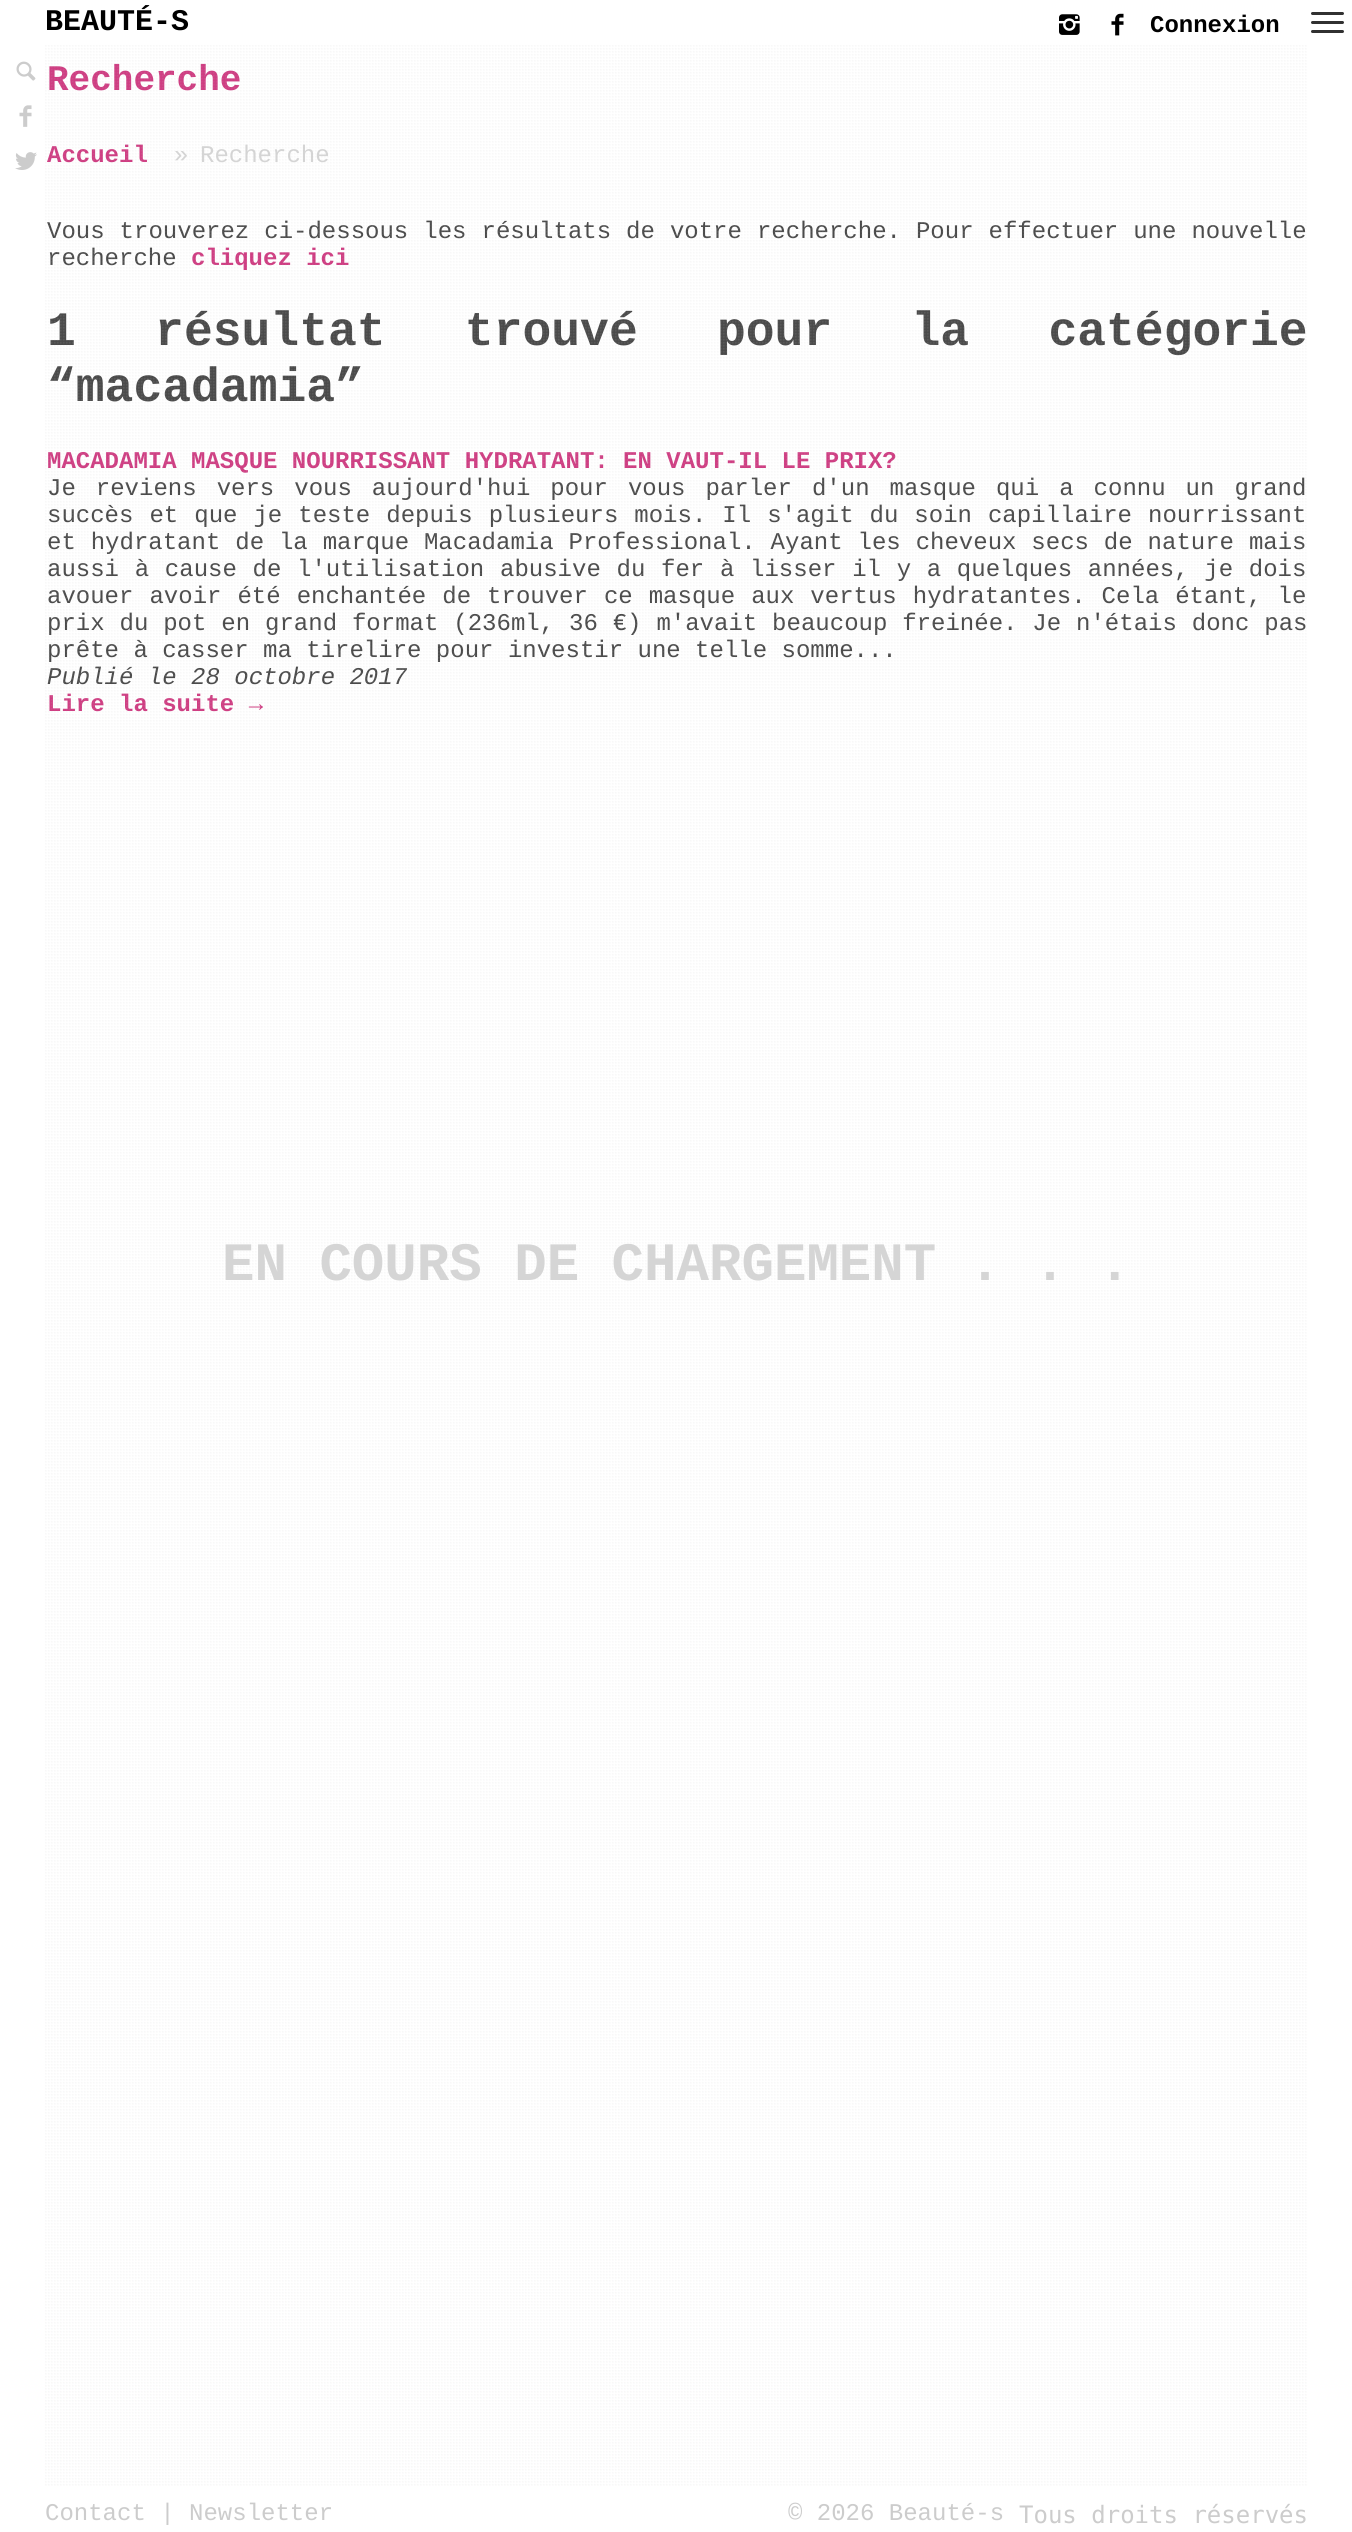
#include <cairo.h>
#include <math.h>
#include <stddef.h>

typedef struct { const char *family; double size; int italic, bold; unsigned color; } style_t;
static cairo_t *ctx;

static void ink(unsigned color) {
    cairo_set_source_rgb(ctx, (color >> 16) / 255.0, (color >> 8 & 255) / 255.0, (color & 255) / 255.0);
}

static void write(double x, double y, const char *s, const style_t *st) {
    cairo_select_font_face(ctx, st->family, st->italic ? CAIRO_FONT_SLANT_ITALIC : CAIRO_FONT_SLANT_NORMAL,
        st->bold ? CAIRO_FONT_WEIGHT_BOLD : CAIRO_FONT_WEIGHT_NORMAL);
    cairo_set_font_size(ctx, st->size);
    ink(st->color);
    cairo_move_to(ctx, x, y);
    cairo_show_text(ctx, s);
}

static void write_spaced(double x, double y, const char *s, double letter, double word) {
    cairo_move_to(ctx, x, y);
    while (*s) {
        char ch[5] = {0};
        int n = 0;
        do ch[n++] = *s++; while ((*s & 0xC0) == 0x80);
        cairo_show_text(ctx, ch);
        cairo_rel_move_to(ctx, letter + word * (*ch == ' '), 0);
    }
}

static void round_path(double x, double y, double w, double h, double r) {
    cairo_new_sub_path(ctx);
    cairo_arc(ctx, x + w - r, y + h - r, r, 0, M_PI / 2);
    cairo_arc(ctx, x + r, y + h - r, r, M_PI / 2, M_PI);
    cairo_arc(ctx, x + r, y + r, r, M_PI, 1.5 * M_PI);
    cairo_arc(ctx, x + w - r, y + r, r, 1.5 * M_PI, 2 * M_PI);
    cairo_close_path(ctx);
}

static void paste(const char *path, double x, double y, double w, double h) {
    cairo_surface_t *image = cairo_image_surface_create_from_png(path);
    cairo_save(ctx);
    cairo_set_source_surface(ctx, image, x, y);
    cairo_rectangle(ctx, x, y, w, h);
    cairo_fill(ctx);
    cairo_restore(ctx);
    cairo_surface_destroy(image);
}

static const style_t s1 = {"Liberation Mono", 30, 0, 1, 0x000000};
static const style_t s2 = {"Liberation Mono", 24, 0, 1, 0x000000};
static const style_t s3 = {"Liberation Mono", 36, 0, 1, 0xcf3d82};
static const style_t s4 = {"Liberation Mono", 24, 0, 1, 0xcf3d82};
static const style_t s5 = {"Liberation Mono", 24, 0, 0, 0xd5d5d5};
static const style_t s6 = {"Liberation Mono", 24, 0, 0, 0x4a4a4a};
static const style_t s7 = {"Liberation Mono", 48, 0, 1, 0x4a4a4a};
static const style_t s8 = {"Liberation Mono", 24, 1, 0, 0x4a4a4a};
static const style_t s9 = {"Liberation Mono", 54.1, 0, 1, 0xd5d5d5};
static const style_t s10 = {"Liberation Mono", 24, 0, 0, 0xcccccc};
static const style_t s11 = {"DejaVu Sans Mono", 24, 0, 0, 0xcccccc};

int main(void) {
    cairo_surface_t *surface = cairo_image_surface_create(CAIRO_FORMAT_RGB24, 1352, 2532);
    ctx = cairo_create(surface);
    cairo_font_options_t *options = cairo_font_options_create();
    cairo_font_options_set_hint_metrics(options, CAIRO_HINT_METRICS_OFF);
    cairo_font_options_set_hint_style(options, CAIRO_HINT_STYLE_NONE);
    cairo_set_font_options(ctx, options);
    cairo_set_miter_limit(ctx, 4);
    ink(0xffffff);
    cairo_paint(ctx);
    write(45, 30, "BEAUTÉ-S", &s1);
    paste("pic1.png", 1059, 14, 21, 21);
    paste("pic2.png", 1111, 13, 13, 23);
    write(1150, 32, "Connexion", &s2);
    ink(0x313131);
    round_path(1311, 12, 33, 3, 1.5);
    cairo_fill(ctx);
    round_path(1311, 21, 33, 3, 1.5);
    cairo_fill(ctx);
    round_path(1311, 30, 33, 3, 1.5);
    cairo_fill(ctx);
    paste("pic3.png", 16, 61, 20, 20);
    paste("pic4.png", 19, 105, 13, 22);
    paste("pic5.png", 15, 152, 22, 18);
    write(47, 90, "Recherche", &s3);
    write(47, 162, "Accueil", &s4);
    write(174, 162, "»", &s5);
    write(200, 162, "Recherche", &s5);
    ink(0x4a4a4a);
    write_spaced(47, 238, "Vous trouverez ci-dessous les résultats de votre recherche. Pour effectuer une nouvelle", 0, 0.6);
    write(47, 265, "recherche", &s6);
    write(191, 265, "cliquez ici", &s4);
    cairo_set_font_size(ctx, 48);
    ink(0x4a4a4a);
    write_spaced(47, 345, "1 résultat trouvé pour la catégorie", 0, 50.5);
    write(47, 401, "“macadamia”", &s7);
    write(47, 468, "MACADAMIA MASQUE NOURRISSANT HYDRATANT: EN VAUT-IL LE PRIX?", &s4);
    cairo_select_font_face(ctx, "Liberation Mono", CAIRO_FONT_SLANT_NORMAL, CAIRO_FONT_WEIGHT_NORMAL);
    ink(0x4a4a4a);
    write_spaced(47, 495, "Je reviens vers vous aujourd'hui pour vous parler d'un masque qui a connu un grand", 0, 5.6);
    write_spaced(47, 522, "succès et que je teste depuis plusieurs mois. Il s'agit du soin capillaire nourrissant", 0, 1.6);
    write_spaced(47, 549, "et hydratant de la marque Macadamia Professional. Ayant les cheveux secs de nature mais", 0, 0.5);
    write_spaced(47, 576, "aussi à cause de l'utilisation abusive du fer à lisser il y a quelques années, je dois", 0, 1.3);
    write_spaced(47, 603, "avouer avoir été enchantée de trouver ce masque aux vertus hydratantes. Cela étant, le", 0, 1.6);
    write_spaced(47, 630, "prix du pot en grand format (236ml, 36 €) m'avait beaucoup freinée. Je n'étais donc pas", 0, 0.5);
    write(47, 657, "prête à casser ma tirelire pour investir une telle somme...", &s6);
    write(47, 684, "Publié le 28 octobre 2017", &s8);
    write(47, 711, "Lire la suite →", &s4);
    paste("pic6.png", 45, 45, 1262, 2441);
    write(222, 1280, "EN COURS DE CHARGEMENT . . .", &s9);
    write(45, 2520, "Contact | Newsletter", &s10);
    write(788, 2520, "© 2026 Beauté-s", &s10);
    write(1019, 2523, "Tous droits réservés", &s11);
    cairo_surface_write_to_png(surface, "screenshot.png");
    cairo_font_options_destroy(options);
    cairo_destroy(ctx);
    cairo_surface_destroy(surface);
    return 0;
}
